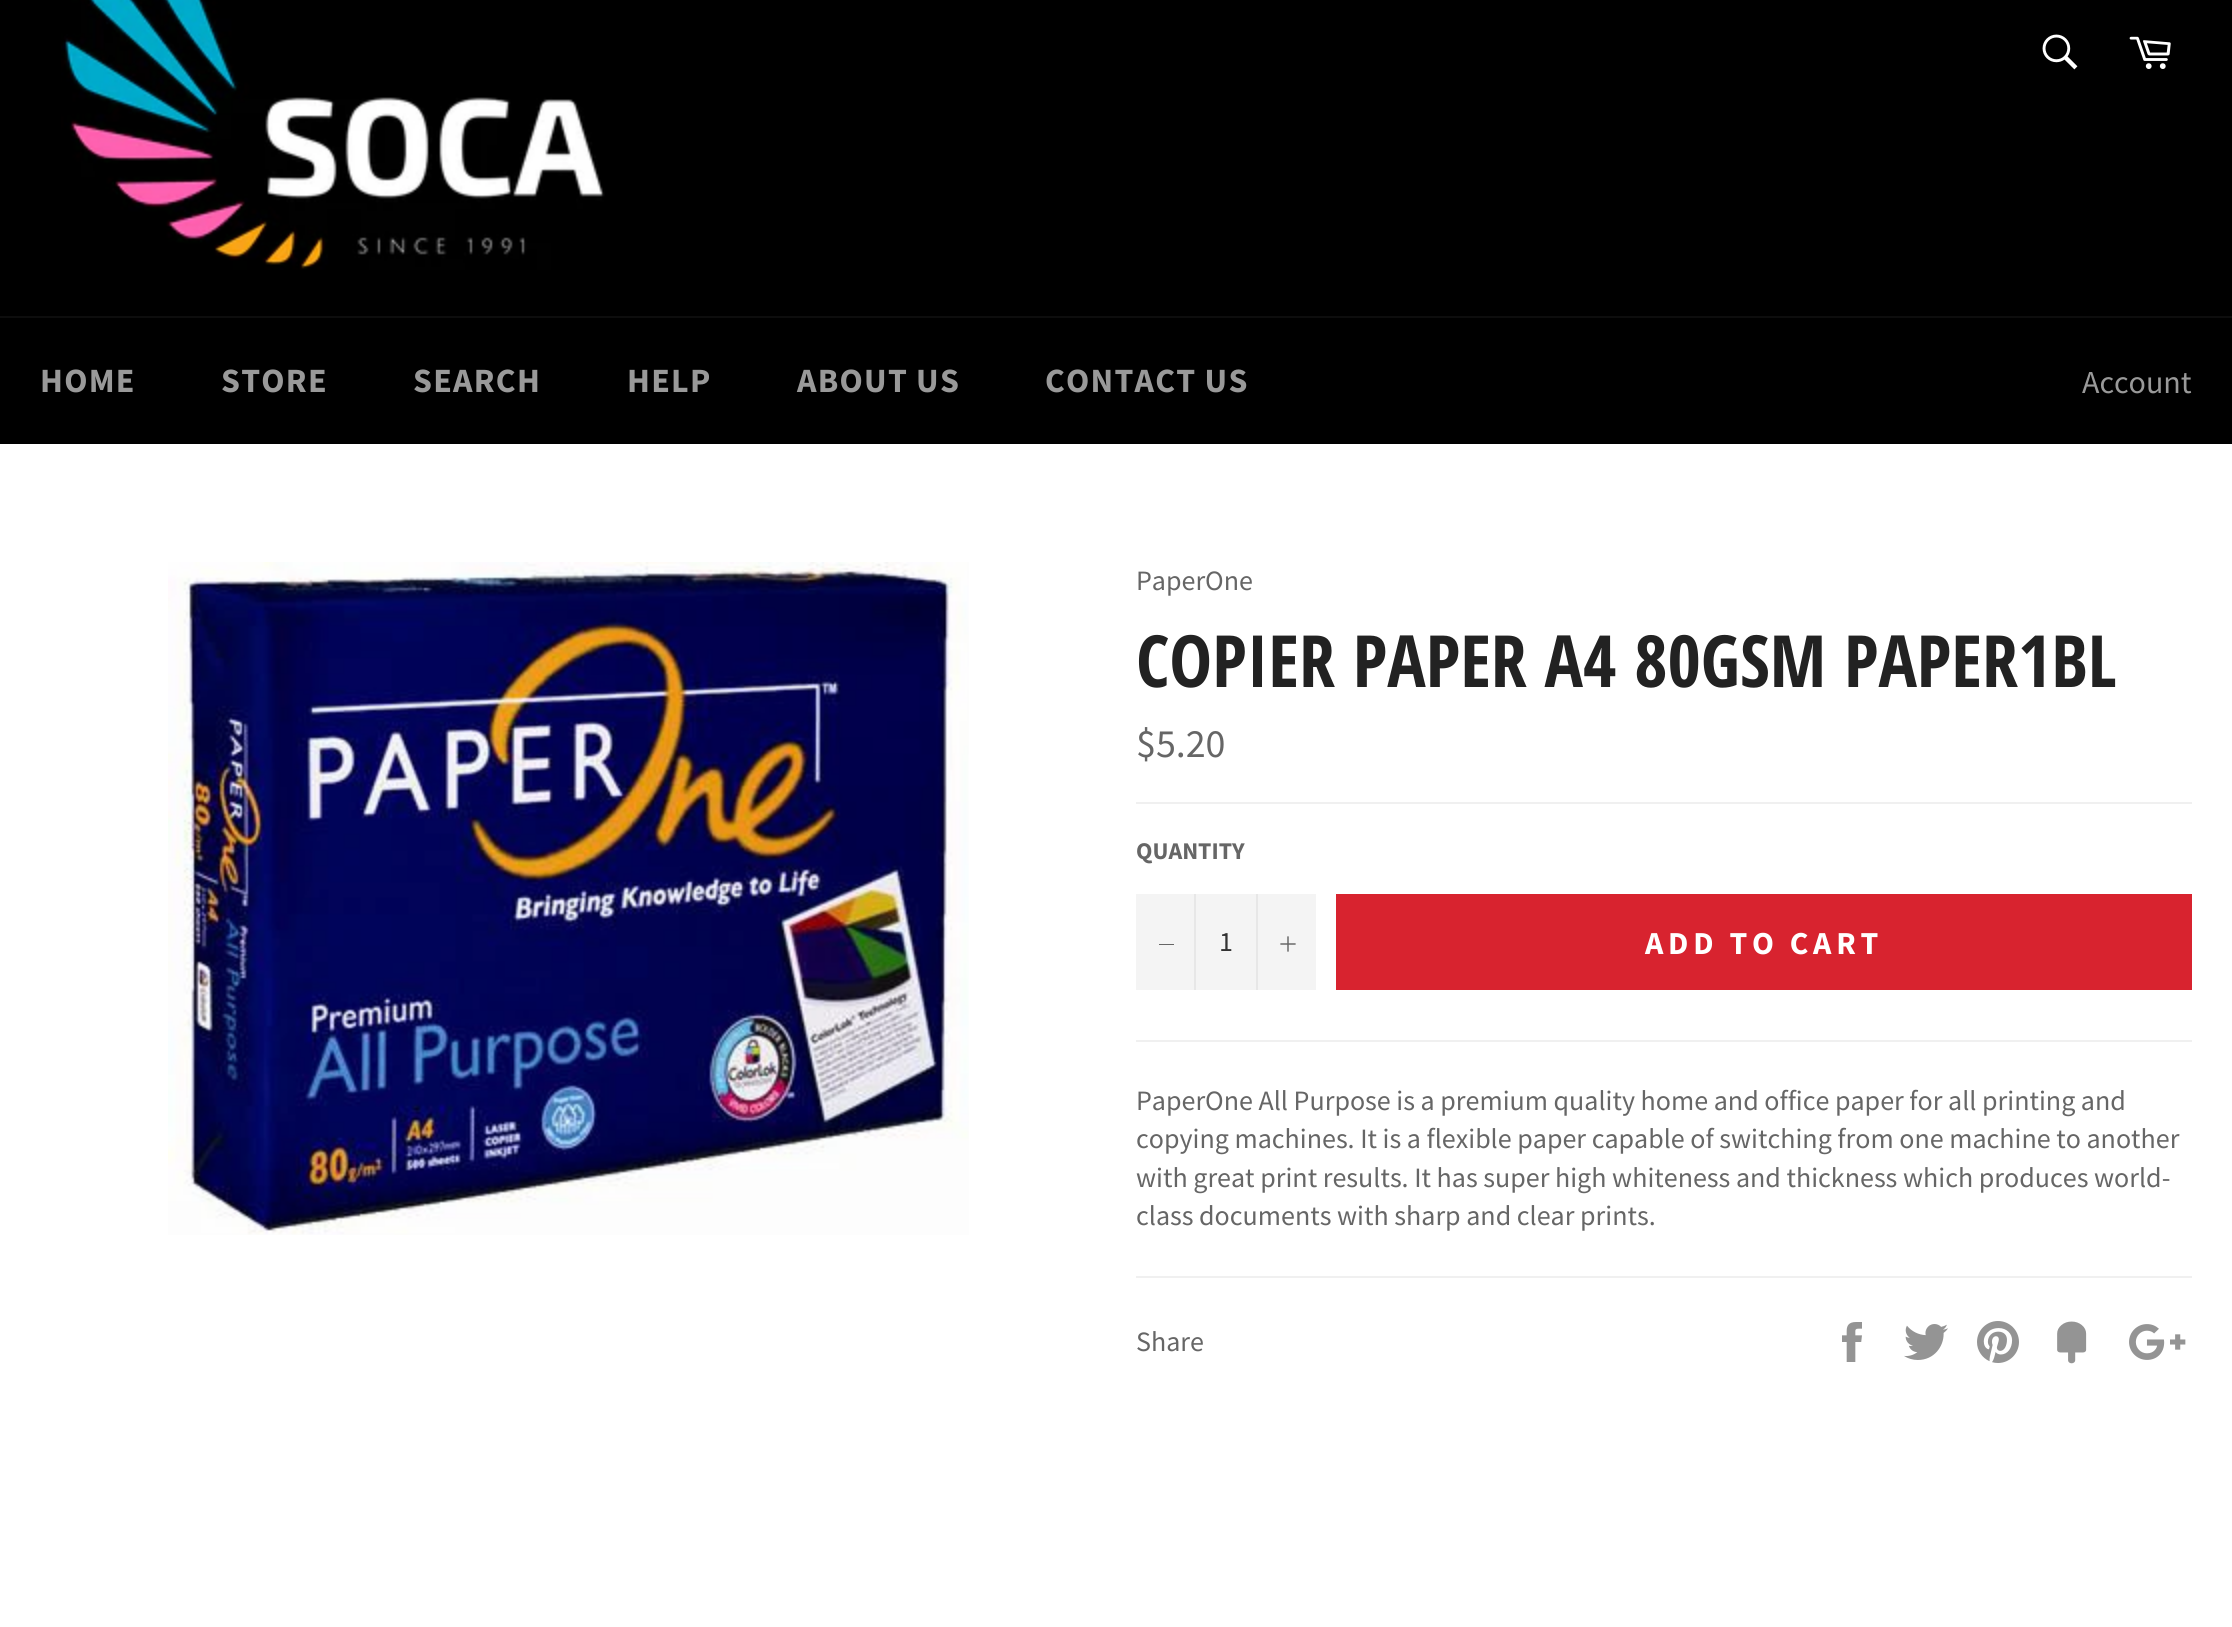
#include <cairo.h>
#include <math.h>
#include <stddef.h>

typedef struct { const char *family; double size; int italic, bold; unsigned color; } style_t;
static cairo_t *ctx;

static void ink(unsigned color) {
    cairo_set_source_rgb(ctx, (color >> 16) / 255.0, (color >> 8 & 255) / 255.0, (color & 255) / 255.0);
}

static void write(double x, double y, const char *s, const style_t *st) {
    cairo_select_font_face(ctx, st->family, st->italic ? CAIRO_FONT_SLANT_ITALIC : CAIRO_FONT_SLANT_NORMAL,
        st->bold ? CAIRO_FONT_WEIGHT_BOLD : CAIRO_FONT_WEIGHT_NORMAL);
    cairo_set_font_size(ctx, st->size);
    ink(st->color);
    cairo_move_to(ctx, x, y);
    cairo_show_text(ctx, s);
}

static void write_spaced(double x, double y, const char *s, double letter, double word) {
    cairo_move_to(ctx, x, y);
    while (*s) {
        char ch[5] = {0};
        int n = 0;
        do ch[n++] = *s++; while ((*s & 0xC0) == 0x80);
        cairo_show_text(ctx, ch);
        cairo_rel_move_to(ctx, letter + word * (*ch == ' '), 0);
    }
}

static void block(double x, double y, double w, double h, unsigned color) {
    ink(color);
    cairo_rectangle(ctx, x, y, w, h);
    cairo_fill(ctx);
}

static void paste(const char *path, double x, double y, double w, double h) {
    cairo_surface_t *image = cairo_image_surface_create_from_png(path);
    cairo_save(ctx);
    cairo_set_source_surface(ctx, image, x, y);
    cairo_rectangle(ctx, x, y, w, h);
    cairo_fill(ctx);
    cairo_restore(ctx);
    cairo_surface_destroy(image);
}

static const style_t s1 = {"Source Sans Pro", 32, 0, 0, 0x999999};
static const style_t s2 = {"Source Sans Pro", 28, 0, 0, 0x666666};
static const style_t s3 = {"Open Sans Condensed", 72, 0, 1, 0x222222};
static const style_t s4 = {"Source Sans Pro", 40, 0, 0, 0x666666};
static const style_t s5 = {"Source Sans Pro", 24, 0, 1, 0x666666};
static const style_t s6 = {"Source Sans Pro", 28, 0, 0, 0x333333};

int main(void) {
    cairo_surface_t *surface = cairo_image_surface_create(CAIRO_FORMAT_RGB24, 2232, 1627);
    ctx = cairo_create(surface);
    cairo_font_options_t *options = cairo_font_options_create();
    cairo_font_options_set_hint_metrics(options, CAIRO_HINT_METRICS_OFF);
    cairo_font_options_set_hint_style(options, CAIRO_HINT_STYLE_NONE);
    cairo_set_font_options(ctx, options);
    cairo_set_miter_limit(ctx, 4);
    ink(0xffffff);
    cairo_paint(ctx);
    block(0, 0, 2232, 316, 0x000000);
    paste("pic1.png", 61, 0, 544, 270);
    paste("pic2.png", 2042, 34, 36, 36);
    paste("pic3.png", 2129, 36, 42, 33);
    block(0, 318, 2232, 126, 0x000000);
    block(0, 316, 2232, 2, 0x0d0d0d);
    cairo_select_font_face(ctx, "Source Sans Pro", CAIRO_FONT_SLANT_NORMAL, CAIRO_FONT_WEIGHT_BOLD);
    cairo_set_font_size(ctx, 34);
    ink(0x999999);
    write_spaced(40, 392, "HOME", 1.25, 0);
    write_spaced(221, 392, "STORE", 1.25, 0);
    write_spaced(413, 392, "SEARCH", 1.25, 0);
    write_spaced(627, 392, "HELP", 1.25, 0);
    write_spaced(797, 392, "ABOUT US", 1.25, 0);
    write_spaced(1045, 392, "CONTACT US", 1.25, 0);
    write(2082, 393, "Account", &s1);
    paste("pic4.png", 168, 562, 801, 673);
    write(1136, 590, "PaperOne", &s2);
    write(1136, 687, "COPIER PAPER A4 80GSM PAPER1BL", &s3);
    write(1136, 757, "$5.20", &s4);
    block(1136, 802, 1056, 2, 0xf0f0f0);
    write(1136, 859, "QUANTITY", &s5);
    block(1136, 894, 180, 96, 0xf4f4f4);
    block(1194, 894, 2, 96, 0xe7e7e7);
    block(1159, 944, 15, 1, 0x666666);
    write(1219, 951, "1", &s6);
    block(1256, 894, 2, 96, 0xe7e7e7);
    paste("pic5.png", 1280, 936, 16, 16);
    block(1336, 894, 856, 96, 0xd8232f);
    cairo_select_font_face(ctx, "Source Sans Pro", CAIRO_FONT_SLANT_NORMAL, CAIRO_FONT_WEIGHT_BOLD);
    cairo_set_font_size(ctx, 32);
    ink(0xffffff);
    write_spaced(1645, 954, "ADD TO CART", 4.75, 0);
    block(1136, 1040, 1056, 2, 0xf0f0f0);
    write(1136, 1110, "PaperOne All Purpose is a premium quality home and office paper for all printing and", &s2);
    write(1136, 1148, "copying machines. It is a flexible paper capable of switching from one machine to another", &s2);
    write(1136, 1187, "with great print results. It has super high whiteness and thickness which produces world-", &s2);
    write(1136, 1225, "class documents with sharp and clear prints.", &s2);
    block(1136, 1276, 1056, 2, 0xf0f0f0);
    write(1136, 1351, "Share", &s2);
    paste("pic6.png", 1842, 1322, 20, 40);
    paste("pic7.png", 1904, 1324, 44, 36);
    paste("pic8.png", 1977, 1321, 42, 42);
    paste("pic9.png", 2057, 1321, 30, 43);
    paste("pic10.png", 2129, 1324, 57, 36);
    cairo_surface_write_to_png(surface, "screenshot.png");
    cairo_font_options_destroy(options);
    cairo_destroy(ctx);
    cairo_surface_destroy(surface);
    return 0;
}
